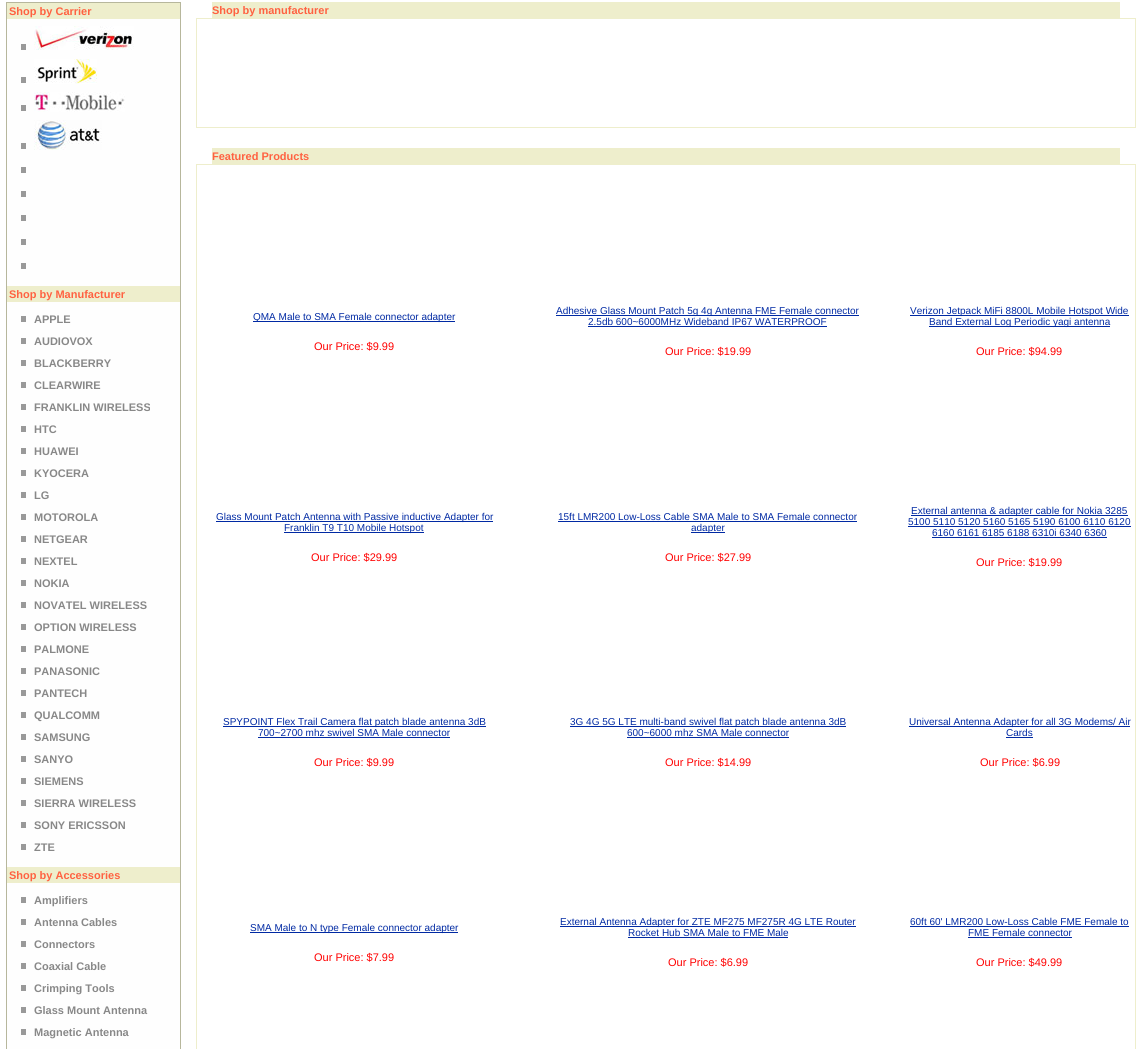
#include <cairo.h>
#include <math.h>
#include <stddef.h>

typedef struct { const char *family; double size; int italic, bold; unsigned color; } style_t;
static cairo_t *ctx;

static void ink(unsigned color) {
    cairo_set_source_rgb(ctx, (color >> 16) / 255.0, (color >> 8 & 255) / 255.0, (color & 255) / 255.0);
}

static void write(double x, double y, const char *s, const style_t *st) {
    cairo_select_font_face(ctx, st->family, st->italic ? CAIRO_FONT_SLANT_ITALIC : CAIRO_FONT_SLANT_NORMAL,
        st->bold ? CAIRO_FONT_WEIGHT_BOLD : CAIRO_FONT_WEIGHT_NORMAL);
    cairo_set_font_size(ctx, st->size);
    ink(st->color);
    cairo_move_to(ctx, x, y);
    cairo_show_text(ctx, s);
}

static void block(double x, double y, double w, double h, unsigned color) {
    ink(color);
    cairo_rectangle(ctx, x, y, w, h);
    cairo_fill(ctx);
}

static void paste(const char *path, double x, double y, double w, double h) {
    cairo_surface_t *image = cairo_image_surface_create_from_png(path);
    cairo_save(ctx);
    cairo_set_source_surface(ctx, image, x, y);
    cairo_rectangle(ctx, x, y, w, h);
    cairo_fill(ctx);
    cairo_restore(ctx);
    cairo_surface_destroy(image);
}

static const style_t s1 = {"Liberation Sans", 11, 0, 1, 0xff6141};
static const style_t s2 = {"Liberation Sans", 11, 0, 1, 0x888888};
static const style_t s3 = {"Liberation Sans", 10, 0, 0, 0x0029a3};
static const style_t s4 = {"Liberation Sans", 11, 0, 0, 0xff0000};

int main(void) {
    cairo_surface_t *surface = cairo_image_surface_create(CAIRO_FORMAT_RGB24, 1142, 1049);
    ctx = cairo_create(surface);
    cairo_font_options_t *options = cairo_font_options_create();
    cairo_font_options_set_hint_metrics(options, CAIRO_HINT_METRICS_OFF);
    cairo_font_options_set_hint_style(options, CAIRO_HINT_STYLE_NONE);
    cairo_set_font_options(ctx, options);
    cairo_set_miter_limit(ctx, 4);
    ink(0xffffff);
    cairo_paint(ctx);
    block(6, 2, 175, 1047, 0xb7b79c);
    block(7, 19, 173, 1030, 0xfefefe);
    block(7, 3, 173, 16, 0xeeeecc);
    write(9, 15, "Shop by Carrier", &s1);
    block(21, 44, 5, 6, 0x999999);
    paste("pic1.png", 34, 26, 100, 24);
    block(21, 77, 5, 6, 0x999999);
    paste("pic2.png", 34, 59, 63, 25);
    block(21, 105, 5, 6, 0x999999);
    paste("pic3.png", 34, 92, 91, 20);
    block(21, 143, 5, 6, 0x999999);
    paste("pic4.png", 34, 120, 68, 30);
    block(21, 167, 5, 6, 0x999999);
    block(21, 191, 5, 6, 0x999999);
    block(21, 215, 5, 6, 0x999999);
    block(21, 239, 5, 6, 0x999999);
    block(21, 263, 5, 6, 0x999999);
    block(7, 286, 173, 16, 0xeeeecc);
    write(9, 298, "Shop by Manufacturer", &s1);
    block(21, 316, 5, 6, 0x999999);
    write(34, 323, "APPLE", &s2);
    block(21, 338, 5, 6, 0x999999);
    write(34, 345, "AUDIOVOX", &s2);
    block(21, 360, 5, 6, 0x999999);
    write(34, 367, "BLACKBERRY", &s2);
    block(21, 382, 5, 6, 0x999999);
    write(34, 389, "CLEARWIRE", &s2);
    block(21, 404, 5, 6, 0x999999);
    write(34, 411, "FRANKLIN WIRELESS", &s2);
    block(21, 426, 5, 6, 0x999999);
    write(34, 433, "HTC", &s2);
    block(21, 448, 5, 6, 0x999999);
    write(34, 455, "HUAWEI", &s2);
    block(21, 470, 5, 6, 0x999999);
    write(34, 477, "KYOCERA", &s2);
    block(21, 492, 5, 6, 0x999999);
    write(34, 499, "LG", &s2);
    block(21, 514, 5, 6, 0x999999);
    write(34, 521, "MOTOROLA", &s2);
    block(21, 536, 5, 6, 0x999999);
    write(34, 543, "NETGEAR", &s2);
    block(21, 558, 5, 6, 0x999999);
    write(34, 565, "NEXTEL", &s2);
    block(21, 580, 5, 6, 0x999999);
    write(34, 587, "NOKIA", &s2);
    block(21, 602, 5, 6, 0x999999);
    write(34, 609, "NOVATEL WIRELESS", &s2);
    block(21, 624, 5, 6, 0x999999);
    write(34, 631, "OPTION WIRELESS", &s2);
    block(21, 646, 5, 6, 0x999999);
    write(34, 653, "PALMONE", &s2);
    block(21, 668, 5, 6, 0x999999);
    write(34, 675, "PANASONIC", &s2);
    block(21, 690, 5, 6, 0x999999);
    write(34, 697, "PANTECH", &s2);
    block(21, 712, 5, 6, 0x999999);
    write(34, 719, "QUALCOMM", &s2);
    block(21, 734, 5, 6, 0x999999);
    write(34, 741, "SAMSUNG", &s2);
    block(21, 756, 5, 6, 0x999999);
    write(34, 763, "SANYO", &s2);
    block(21, 778, 5, 6, 0x999999);
    write(34, 785, "SIEMENS", &s2);
    block(21, 800, 5, 6, 0x999999);
    write(34, 807, "SIERRA WIRELESS", &s2);
    block(21, 822, 5, 6, 0x999999);
    write(34, 829, "SONY ERICSSON", &s2);
    block(21, 844, 5, 6, 0x999999);
    write(34, 851, "ZTE", &s2);
    block(7, 867, 173, 16, 0xeeeecc);
    write(9, 879, "Shop by Accessories", &s1);
    block(21, 897, 5, 6, 0x999999);
    write(34, 904, "Amplifiers", &s2);
    block(21, 919, 5, 6, 0x999999);
    write(34, 926, "Antenna Cables", &s2);
    block(21, 941, 5, 6, 0x999999);
    write(34, 948, "Connectors", &s2);
    block(21, 963, 5, 6, 0x999999);
    write(34, 970, "Coaxial Cable", &s2);
    block(21, 985, 5, 6, 0x999999);
    write(34, 992, "Crimping Tools", &s2);
    block(21, 1007, 5, 6, 0x999999);
    write(34, 1014, "Glass Mount Antenna", &s2);
    block(21, 1029, 5, 6, 0x999999);
    write(34, 1036, "Magnetic Antenna", &s2);
    block(212, 2, 908, 16, 0xeeeecc);
    write(212, 14, "Shop by manufacturer", &s1);
    block(196, 18, 940, 110, 0xeeeecc);
    block(197, 19, 938, 108, 0xffffff);
    block(212, 148, 908, 16, 0xeeeecc);
    write(212, 160, "Featured Products", &s1);
    block(196, 164, 940, 885, 0xeeeecc);
    block(197, 165, 938, 884, 0xffffff);
    block(253, 321, 202, 1, 0x0029a3);
    write(253, 320, "QMA Male to SMA Female connector adapter", &s3);
    write(314, 350, "Our Price: $9.99", &s4);
    block(556, 315, 303, 1, 0x0029a3);
    write(556, 314, "Adhesive Glass Mount Patch 5g 4g Antenna FME Female connector", &s3);
    write(588, 325, "2.5db 600~6000MHz Wideband IP67 WATERPROOF", &s3);
    block(588, 326, 239, 1, 0x0029a3);
    write(665, 355, "Our Price: $19.99", &s4);
    block(910, 315, 219, 1, 0x0029a3);
    write(910, 314, "Verizon Jetpack MiFi 8800L Mobile Hotspot Wide", &s3);
    block(929, 326, 181, 1, 0x0029a3);
    write(929, 325, "Band External Log Periodic yagi antenna", &s3);
    write(976, 355, "Our Price: $94.99", &s4);
    block(216, 521, 277, 1, 0x0029a3);
    write(216, 520, "Glass Mount Patch Antenna with Passive inductive Adapter for", &s3);
    block(284, 532, 140, 1, 0x0029a3);
    write(284, 531, "Franklin T9 T10 Mobile Hotspot", &s3);
    write(311, 561, "Our Price: $29.99", &s4);
    write(558, 520, "15ft LMR200 Low-Loss Cable SMA Male to SMA Female connector", &s3);
    block(558, 521, 299, 1, 0x0029a3);
    block(691, 532, 34, 1, 0x0029a3);
    write(691, 531, "adapter", &s3);
    write(665, 561, "Our Price: $27.99", &s4);
    block(911, 515, 217, 1, 0x0029a3);
    write(911, 514, "External antenna & adapter cable for Nokia 3285", &s3);
    write(908, 525, "5100 5110 5120 5160 5165 5190 6100 6110 6120", &s3);
    block(908, 526, 223, 1, 0x0029a3);
    write(932, 536, "6160 6161 6185 6188 6310i 6340 6360", &s3);
    block(932, 537, 175, 1, 0x0029a3);
    write(976, 566, "Our Price: $19.99", &s4);
    block(223, 726, 263, 1, 0x0029a3);
    write(223, 725, "SPYPOINT Flex Trail Camera flat patch blade antenna 3dB", &s3);
    write(258, 736, "700~2700 mhz swivel SMA Male connector", &s3);
    block(258, 737, 192, 1, 0x0029a3);
    write(314, 766, "Our Price: $9.99", &s4);
    block(570, 726, 276, 1, 0x0029a3);
    write(570, 725, "3G 4G 5G LTE multi-band swivel flat patch blade antenna 3dB", &s3);
    write(627, 736, "600~6000 mhz SMA Male connector", &s3);
    block(627, 737, 162, 1, 0x0029a3);
    write(665, 766, "Our Price: $14.99", &s4);
    block(909, 726, 221, 1, 0x0029a3);
    write(909, 725, "Universal Antenna Adapter for all 3G Modems/ Air", &s3);
    write(1006, 736, "Cards", &s3);
    block(1006, 737, 27, 1, 0x0029a3);
    write(980, 766, "Our Price: $6.99", &s4);
    block(250, 932, 208, 1, 0x0029a3);
    write(250, 931, "SMA Male to N type Female connector adapter", &s3);
    write(314, 961, "Our Price: $7.99", &s4);
    block(560, 926, 296, 1, 0x0029a3);
    write(560, 925, "External Antenna Adapter for ZTE MF275 MF275R 4G LTE Router", &s3);
    write(628, 936, "Rocket Hub SMA Male to FME Male", &s3);
    block(628, 937, 160, 1, 0x0029a3);
    write(668, 966, "Our Price: $6.99", &s4);
    write(910, 925, "60ft 60' LMR200 Low-Loss Cable FME Female to", &s3);
    block(910, 926, 219, 1, 0x0029a3);
    write(968, 936, "FME Female connector", &s3);
    block(968, 937, 104, 1, 0x0029a3);
    write(976, 966, "Our Price: $49.99", &s4);
    cairo_surface_write_to_png(surface, "screenshot.png");
    cairo_font_options_destroy(options);
    cairo_destroy(ctx);
    cairo_surface_destroy(surface);
    return 0;
}
